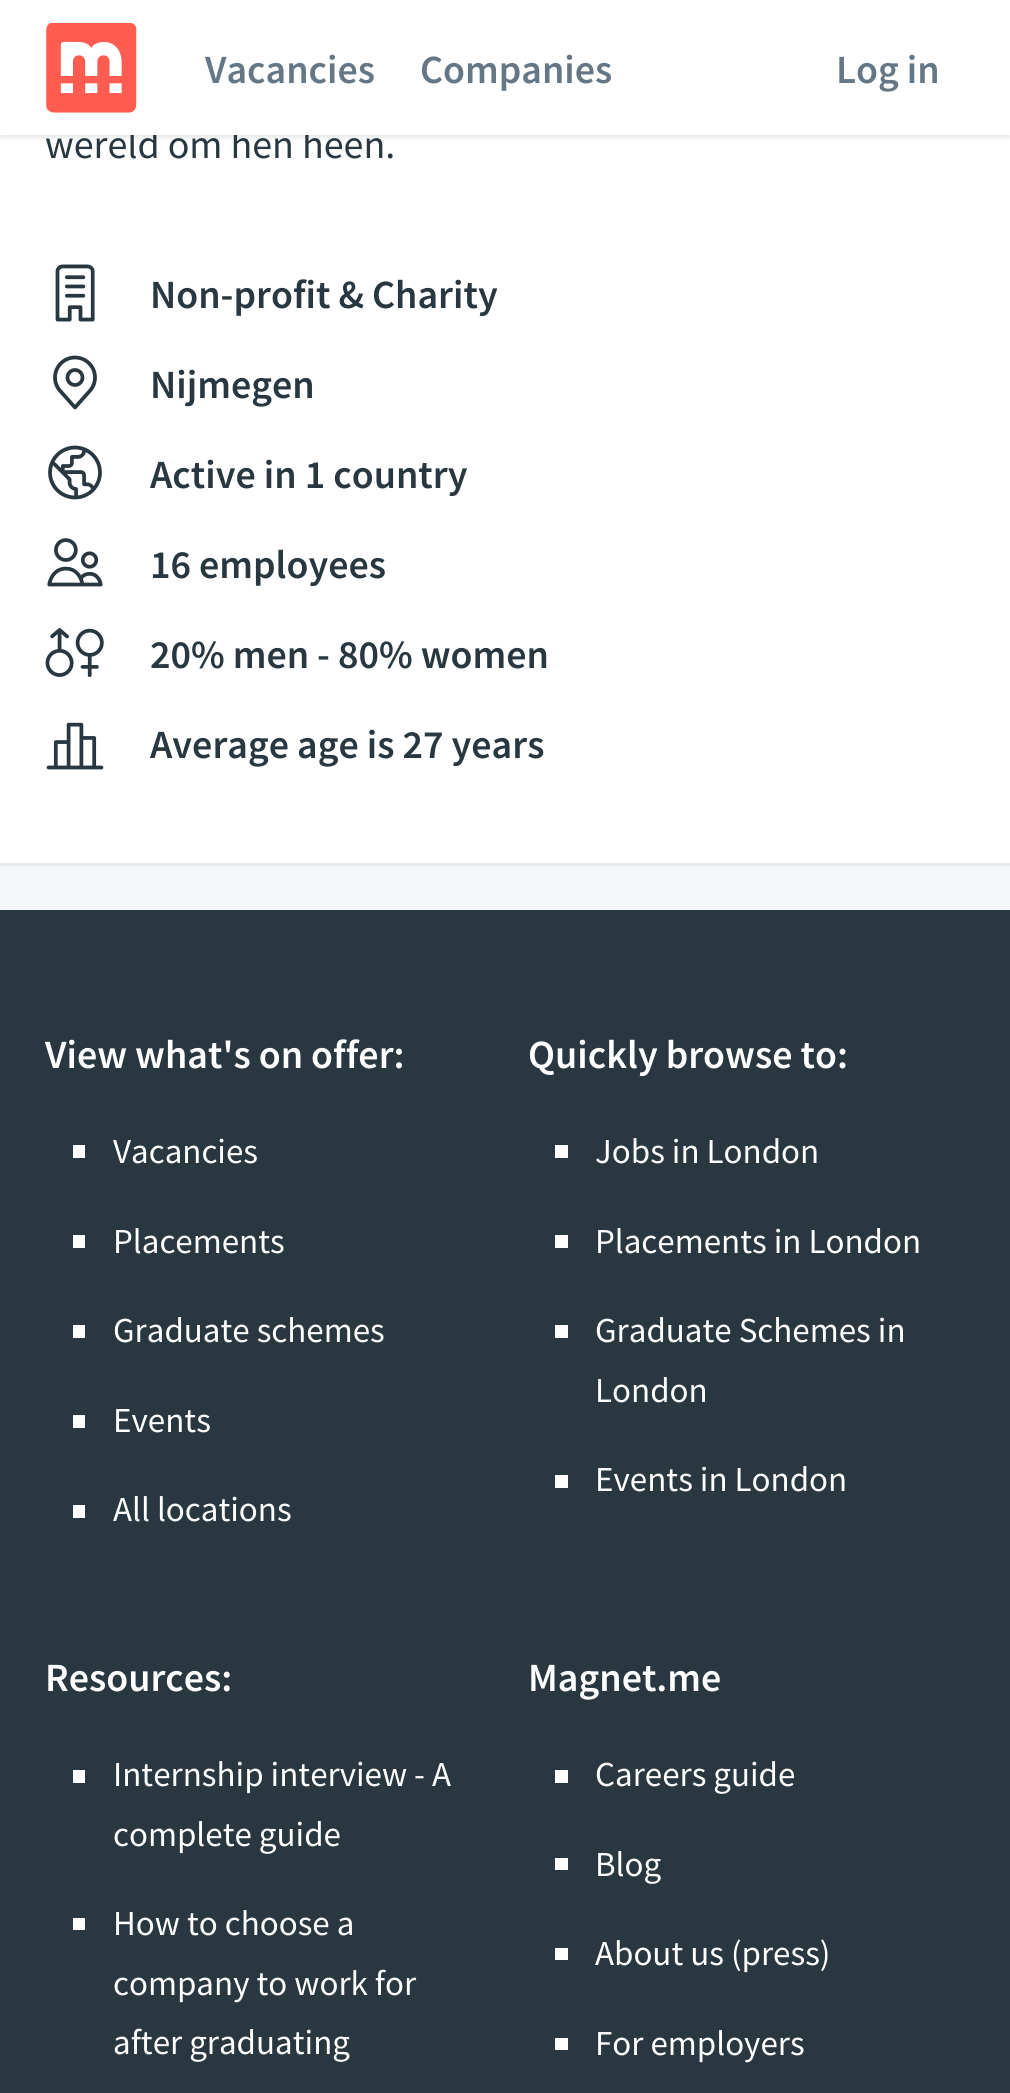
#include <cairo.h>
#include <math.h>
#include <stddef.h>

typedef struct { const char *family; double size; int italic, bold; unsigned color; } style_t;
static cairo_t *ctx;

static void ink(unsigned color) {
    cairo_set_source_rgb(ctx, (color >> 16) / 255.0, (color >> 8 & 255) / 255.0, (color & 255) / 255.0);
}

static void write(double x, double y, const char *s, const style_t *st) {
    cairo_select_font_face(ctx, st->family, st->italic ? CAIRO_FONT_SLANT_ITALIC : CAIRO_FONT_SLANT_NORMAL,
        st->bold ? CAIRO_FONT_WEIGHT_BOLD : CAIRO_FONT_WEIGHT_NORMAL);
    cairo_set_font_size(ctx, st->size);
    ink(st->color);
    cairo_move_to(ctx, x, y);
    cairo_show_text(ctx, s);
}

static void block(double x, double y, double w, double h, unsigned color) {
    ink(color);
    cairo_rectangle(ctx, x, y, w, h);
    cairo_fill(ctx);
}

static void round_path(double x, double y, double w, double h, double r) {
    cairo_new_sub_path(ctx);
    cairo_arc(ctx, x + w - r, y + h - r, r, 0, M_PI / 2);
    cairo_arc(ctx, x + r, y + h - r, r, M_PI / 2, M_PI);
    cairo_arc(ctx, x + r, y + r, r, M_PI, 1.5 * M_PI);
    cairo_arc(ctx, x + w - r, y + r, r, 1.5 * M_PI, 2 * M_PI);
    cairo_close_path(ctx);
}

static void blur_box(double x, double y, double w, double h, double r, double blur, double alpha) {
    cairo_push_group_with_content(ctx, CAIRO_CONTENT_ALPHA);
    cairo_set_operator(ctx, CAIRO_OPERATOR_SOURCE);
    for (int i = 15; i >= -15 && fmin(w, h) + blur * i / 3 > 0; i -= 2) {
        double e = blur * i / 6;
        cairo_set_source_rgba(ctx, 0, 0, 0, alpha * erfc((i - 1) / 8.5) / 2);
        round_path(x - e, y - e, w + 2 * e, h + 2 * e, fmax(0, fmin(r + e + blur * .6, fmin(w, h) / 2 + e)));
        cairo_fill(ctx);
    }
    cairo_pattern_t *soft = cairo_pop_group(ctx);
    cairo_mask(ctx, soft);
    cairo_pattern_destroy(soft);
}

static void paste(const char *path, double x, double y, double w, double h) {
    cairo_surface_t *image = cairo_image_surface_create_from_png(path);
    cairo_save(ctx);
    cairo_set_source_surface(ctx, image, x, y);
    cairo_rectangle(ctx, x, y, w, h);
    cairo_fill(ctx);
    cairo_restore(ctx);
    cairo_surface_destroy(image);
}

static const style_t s1 = {"Source Sans Pro", 40, 0, 0, 0x283740};
static const style_t s2 = {"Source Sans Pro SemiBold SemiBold", 40, 0, 0, 0x657786};
static const style_t s3 = {"Source Sans Pro SemiBold SemiBold", 40, 0, 0, 0x283740};
static const style_t s4 = {"Source Sans Pro SemiBold SemiBold", 40, 0, 0, 0xffffff};
static const style_t s5 = {"Source Sans Pro", 35, 0, 0, 0xffffff};

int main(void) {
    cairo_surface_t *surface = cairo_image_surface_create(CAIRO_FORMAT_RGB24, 1010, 2093);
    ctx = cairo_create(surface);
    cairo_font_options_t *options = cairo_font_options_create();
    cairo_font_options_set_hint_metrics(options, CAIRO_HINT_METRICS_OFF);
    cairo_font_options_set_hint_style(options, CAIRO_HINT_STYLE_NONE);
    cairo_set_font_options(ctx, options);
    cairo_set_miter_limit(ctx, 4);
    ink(0xf5f8fa);
    cairo_paint(ctx);
    block(0, 135, 1010, 728, 0xffffff);
    ink(0x283740);
    blur_box(0, 3, 1010, 135, 0, 2.5, 0.12);
    write(45, 158, "wereld om hen heen.", &s1);
    block(0, 0, 1010, 135, 0xffffff);
    paste("pic1.png", 46, 23, 91, 90);
    write(205, 83, "Vacancies", &s2);
    write(420, 83, "Companies", &s2);
    write(836, 83, "Log in", &s2);
    paste("pic2.png", 55, 264, 40, 58);
    write(150, 308, "Non-profit & Charity", &s3);
    paste("pic3.png", 53, 355, 44, 55);
    write(150, 398, "Nijmegen", &s3);
    paste("pic4.png", 48, 445, 54, 55);
    write(150, 488, "Active in 1 country", &s3);
    paste("pic5.png", 47, 538, 56, 49);
    write(150, 578, "16 employees", &s3);
    paste("pic6.png", 45, 628, 59, 50);
    write(150, 668, "20% men - 80% women", &s3);
    paste("pic7.png", 46, 722, 58, 48);
    write(150, 758, "Average age is 27 years", &s3);
    block(0, 863, 1010, 3, 0xe6ecf0);
    block(0, 910, 1010, 1183, 0x283740);
    write(45, 1068, "View what's on offer:", &s4);
    block(73, 1145, 12, 13, 0xffffff);
    write(113, 1163, "Vacancies", &s5);
    block(73, 1235, 12, 13, 0xffffff);
    write(113, 1253, "Placements", &s5);
    block(73, 1325, 12, 13, 0xffffff);
    write(113, 1342, "Graduate schemes", &s5);
    block(73, 1415, 12, 13, 0xffffff);
    write(113, 1432, "Events", &s5);
    block(73, 1505, 12, 13, 0xffffff);
    write(113, 1521, "All locations", &s5);
    write(528, 1068, "Quickly browse to:", &s4);
    block(555, 1145, 13, 13, 0xffffff);
    write(595, 1163, "Jobs in London", &s5);
    block(555, 1235, 13, 13, 0xffffff);
    write(595, 1253, "Placements in London", &s5);
    block(555, 1325, 13, 13, 0xffffff);
    write(595, 1342, "Graduate Schemes in", &s5);
    write(595, 1402, "London", &s5);
    block(555, 1475, 13, 13, 0xffffff);
    write(595, 1491, "Events in London", &s5);
    write(45, 1691, "Resources:", &s4);
    block(73, 1770, 12, 13, 0xffffff);
    write(113, 1786, "Internship interview - A", &s5);
    write(113, 1846, "complete guide", &s5);
    block(73, 1918, 12, 12, 0xffffff);
    write(113, 1935, "How to choose a", &s5);
    write(113, 1995, "company to work for", &s5);
    write(113, 2054, "after graduating", &s5);
    write(528, 1691, "Magnet.me", &s4);
    block(555, 1770, 13, 13, 0xffffff);
    write(595, 1786, "Careers guide", &s5);
    block(555, 1858, 13, 12, 0xffffff);
    write(595, 1876, "Blog", &s5);
    block(555, 1948, 13, 12, 0xffffff);
    write(595, 1965, "About us (press)", &s5);
    block(555, 2038, 13, 12, 0xffffff);
    write(595, 2055, "For employers", &s5);
    cairo_surface_write_to_png(surface, "screenshot.png");
    cairo_font_options_destroy(options);
    cairo_destroy(ctx);
    cairo_surface_destroy(surface);
    return 0;
}
